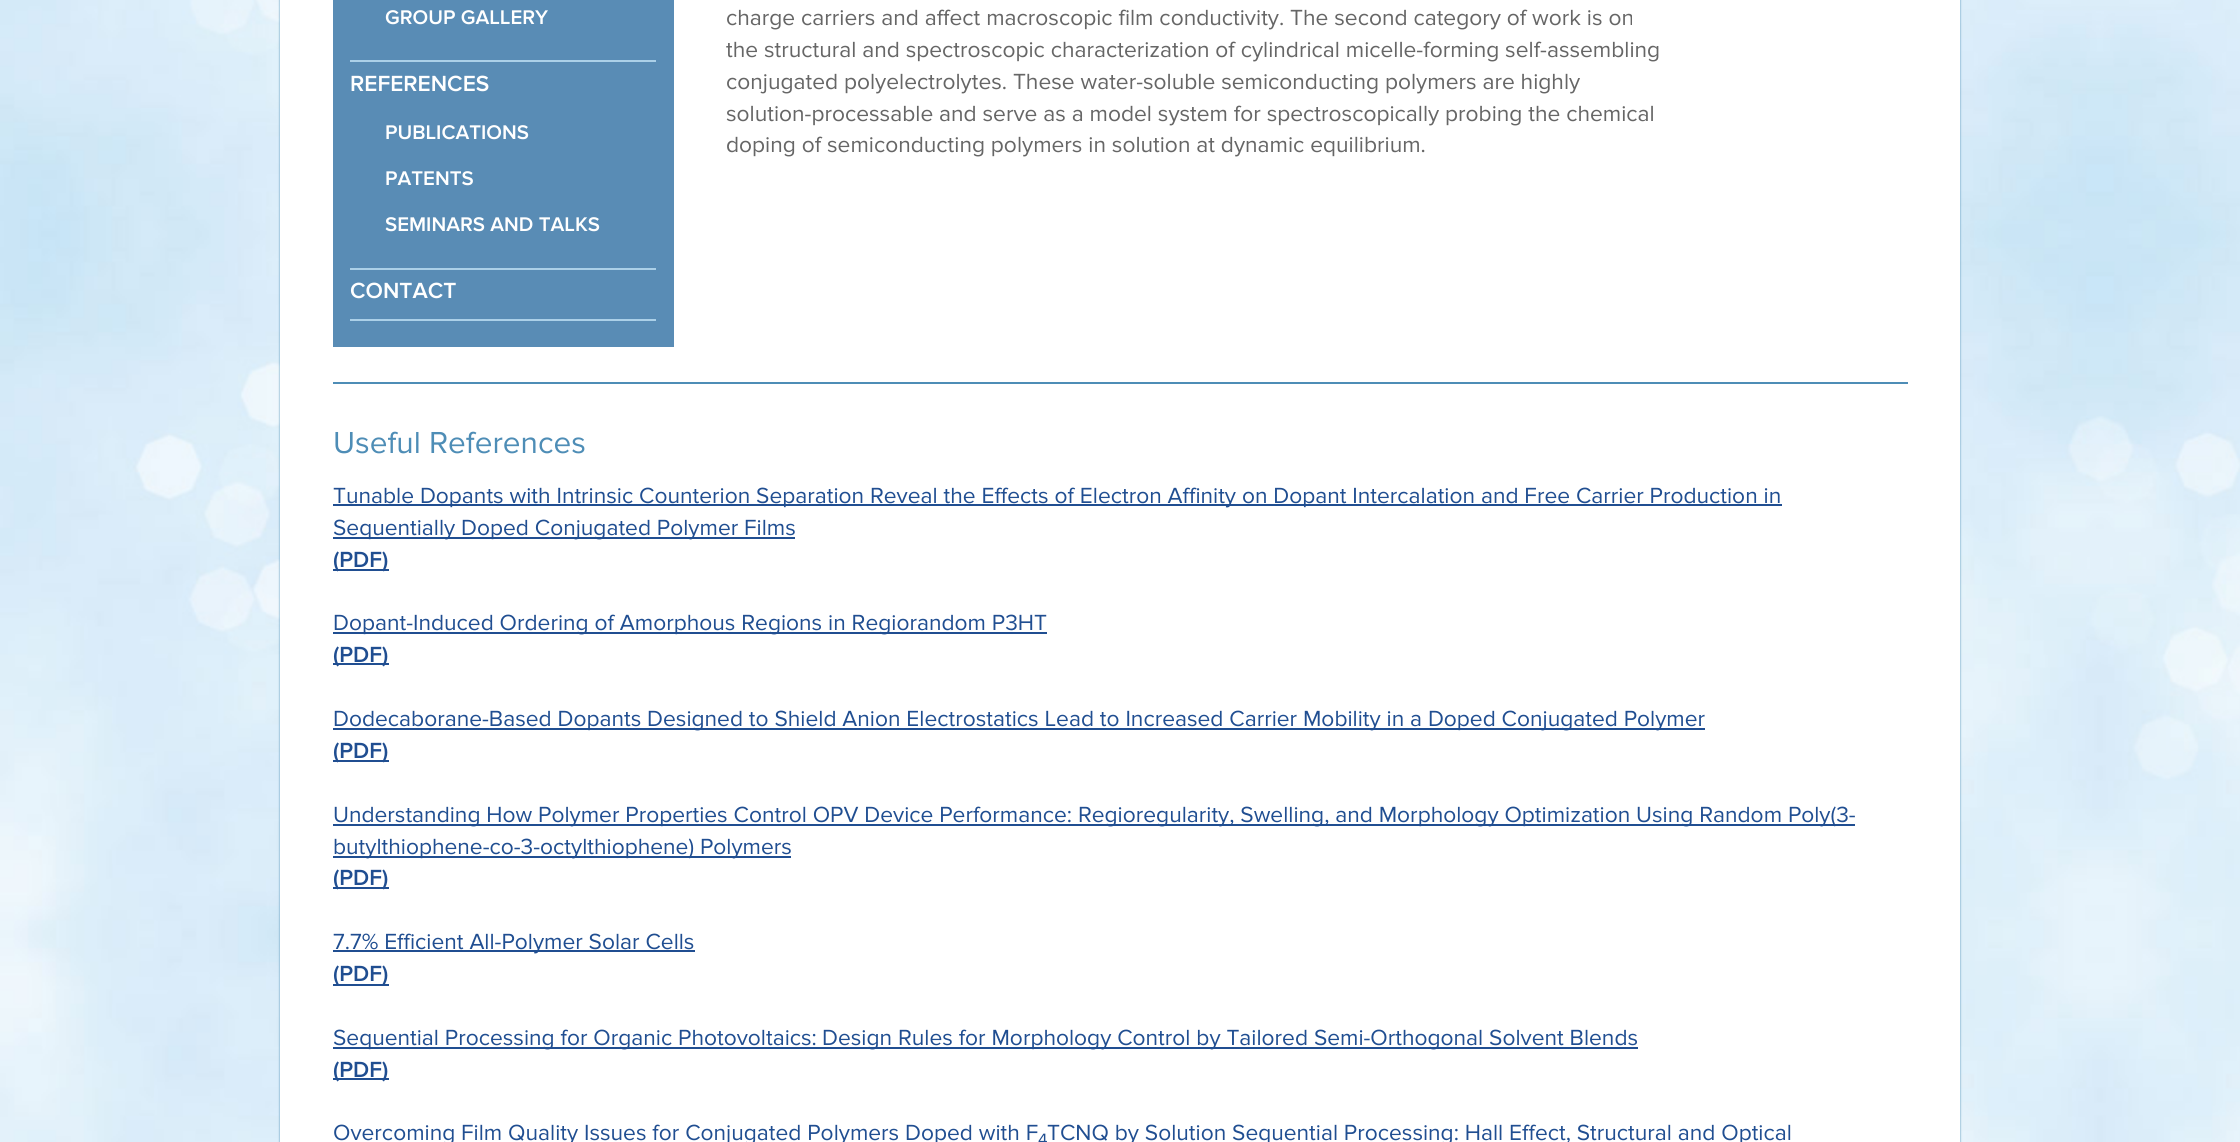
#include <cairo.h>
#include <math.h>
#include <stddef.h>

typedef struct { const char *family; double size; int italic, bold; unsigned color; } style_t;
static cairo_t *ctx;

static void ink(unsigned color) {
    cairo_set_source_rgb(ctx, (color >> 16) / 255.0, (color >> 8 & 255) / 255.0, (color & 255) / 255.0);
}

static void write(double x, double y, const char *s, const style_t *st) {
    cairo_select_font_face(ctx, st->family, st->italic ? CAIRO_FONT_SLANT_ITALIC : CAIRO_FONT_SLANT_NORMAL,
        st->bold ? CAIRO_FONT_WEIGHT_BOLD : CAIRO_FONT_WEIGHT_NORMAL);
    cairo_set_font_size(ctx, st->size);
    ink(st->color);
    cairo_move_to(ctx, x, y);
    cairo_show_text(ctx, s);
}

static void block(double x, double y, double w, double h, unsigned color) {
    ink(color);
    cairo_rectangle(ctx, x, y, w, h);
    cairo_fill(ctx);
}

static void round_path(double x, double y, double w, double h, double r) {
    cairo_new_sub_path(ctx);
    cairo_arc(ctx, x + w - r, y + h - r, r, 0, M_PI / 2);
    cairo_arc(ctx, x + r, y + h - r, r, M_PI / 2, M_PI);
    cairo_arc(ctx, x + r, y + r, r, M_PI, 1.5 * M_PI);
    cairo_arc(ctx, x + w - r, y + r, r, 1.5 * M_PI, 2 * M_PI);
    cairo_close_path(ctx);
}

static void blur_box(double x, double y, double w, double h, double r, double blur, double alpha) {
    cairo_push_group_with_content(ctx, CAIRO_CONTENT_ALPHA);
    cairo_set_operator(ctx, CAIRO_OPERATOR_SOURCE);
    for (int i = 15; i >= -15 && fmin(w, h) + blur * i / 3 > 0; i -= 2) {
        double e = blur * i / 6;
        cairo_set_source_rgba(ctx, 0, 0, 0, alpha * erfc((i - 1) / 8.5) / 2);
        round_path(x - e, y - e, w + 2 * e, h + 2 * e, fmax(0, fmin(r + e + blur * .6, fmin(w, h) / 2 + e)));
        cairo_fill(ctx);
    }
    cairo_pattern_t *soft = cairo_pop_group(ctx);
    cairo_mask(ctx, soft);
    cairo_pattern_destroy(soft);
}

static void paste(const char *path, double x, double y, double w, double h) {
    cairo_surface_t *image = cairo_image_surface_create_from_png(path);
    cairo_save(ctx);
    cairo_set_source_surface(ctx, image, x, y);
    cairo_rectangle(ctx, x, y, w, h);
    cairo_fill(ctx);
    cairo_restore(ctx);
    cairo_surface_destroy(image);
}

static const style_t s1 = {"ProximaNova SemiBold", 20.5, 0, 0, 0xffffff};
static const style_t s2 = {"ProximaNova SemiBold", 22.75, 0, 0, 0xffffff};
static const style_t s3 = {"ProximaNova", 22.75, 0, 0, 0x666666};
static const style_t s4 = {"ProximaNova", 31.5, 0, 0, 0x4e8db6};
static const style_t s5 = {"ProximaNova", 22.75, 0, 0, 0x204e91};
static const style_t s6 = {"ProximaNova SemiBold", 22.75, 0, 0, 0x204e91};
static const style_t s7 = {"ProximaNova", 17, 0, 0, 0x204e91};

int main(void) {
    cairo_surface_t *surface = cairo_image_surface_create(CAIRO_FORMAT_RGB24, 2240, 1142);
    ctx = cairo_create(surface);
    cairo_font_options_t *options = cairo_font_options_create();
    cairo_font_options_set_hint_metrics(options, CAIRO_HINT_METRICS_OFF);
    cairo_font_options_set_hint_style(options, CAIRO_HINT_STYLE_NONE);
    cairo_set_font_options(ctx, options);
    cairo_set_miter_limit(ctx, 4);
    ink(0xffffff);
    cairo_paint(ctx);
    paste("pic1.png", 0, 0, 2240, 1142);
    ink(0x4e8db6);
    blur_box(280, -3, 1680, 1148, 0, 1, 1);
    block(280, 0, 1680, 1142, 0xffffff);
    block(333, 0, 341, 347, 0x598cb5);
    block(350, 60, 306, 2, 0xabd0e8);
    write(385, 24, "GROUP GALLERY", &s1);
    block(350, 268, 306, 2, 0xabd0e8);
    write(350, 91, "REFERENCES", &s2);
    write(385, 139, "PUBLICATIONS", &s1);
    write(385, 185, "PATENTS", &s1);
    write(385, 231, "SEMINARS AND TALKS", &s1);
    block(350, 319, 306, 2, 0xabd0e8);
    write(350, 298, "CONTACT", &s2);
    write(726, 25, "charge carriers and affect macroscopic film conductivity. The second category of work is on", &s3);
    write(726, 57, "the structural and spectroscopic characterization of cylindrical micelle-forming self-assembling", &s3);
    write(726, 89, "conjugated polyelectrolytes. These water-soluble semiconducting polymers are highly", &s3);
    write(726, 121, "solution-processable and serve as a model system for spectroscopically probing the chemical", &s3);
    write(726, 152, "doping of semiconducting polymers in solution at dynamic equilibrium.", &s3);
    block(333, 382, 1575, 2, 0x4e8db6);
    write(333, 453, "Useful References", &s4);
    block(333, 504, 1449, 2, 0x204e91);
    write(333, 503, "Tunable Dopants with Intrinsic Counterion Separation Reveal the Effects of Electron Affinity on Dopant Intercalation and Free Carrier Production in", &s5);
    block(333, 537, 462, 2, 0x204e91);
    write(333, 535, "Sequentially Doped Conjugated Polymer Films", &s5);
    block(333, 569, 56, 2, 0x204e91);
    write(333, 567, "(PDF)", &s6);
    block(333, 632, 714, 2, 0x204e91);
    write(333, 630, "Dopant-Induced Ordering of Amorphous Regions in Regiorandom P3HT", &s5);
    block(333, 663, 56, 2, 0x204e91);
    write(333, 662, "(PDF)", &s6);
    block(333, 728, 1372, 2, 0x204e91);
    write(333, 726, "Dodecaborane-Based Dopants Designed to Shield Anion Electrostatics Lead to Increased Carrier Mobility in a Doped Conjugated Polymer", &s5);
    block(333, 760, 56, 2, 0x204e91);
    write(333, 758, "(PDF)", &s6);
    block(333, 824, 1522, 2, 0x204e91);
    write(333, 822, "Understanding How Polymer Properties Control OPV Device Performance: Regioregularity, Swelling, and Morphology Optimization Using Random Poly(3-", &s5);
    block(333, 856, 458, 2, 0x204e91);
    write(333, 854, "butylthiophene-co-3-octylthiophene) Polymers", &s5);
    block(333, 887, 56, 2, 0x204e91);
    write(333, 885, "(PDF)", &s6);
    block(333, 950, 362, 2, 0x204e91);
    write(333, 949, "7.7% Efficient All-Polymer Solar Cells", &s5);
    block(333, 984, 56, 2, 0x204e91);
    write(333, 981, "(PDF)", &s6);
    block(333, 1047, 1305, 2, 0x204e91);
    write(333, 1045, "Sequential Processing for Organic Photovoltaics:", &s5);
    write(822, 1045, "Design Rules for Morphology Control by Tailored Semi-Orthogonal Solvent Blends", &s5);
    block(333, 1078, 56, 2, 0x204e91);
    write(333, 1077, "(PDF)", &s6);
    write(333, 1140, "Overcoming Film Quality Issues for Conjugated Polymers Doped with F", &s5);
    write(1038, 1145, "4", &s7);
    write(1047, 1140, "TCNQ by Solution Sequential Processing: Hall Effect, Structural and Optical", &s5);
    cairo_surface_write_to_png(surface, "screenshot.png");
    cairo_font_options_destroy(options);
    cairo_destroy(ctx);
    cairo_surface_destroy(surface);
    return 0;
}
